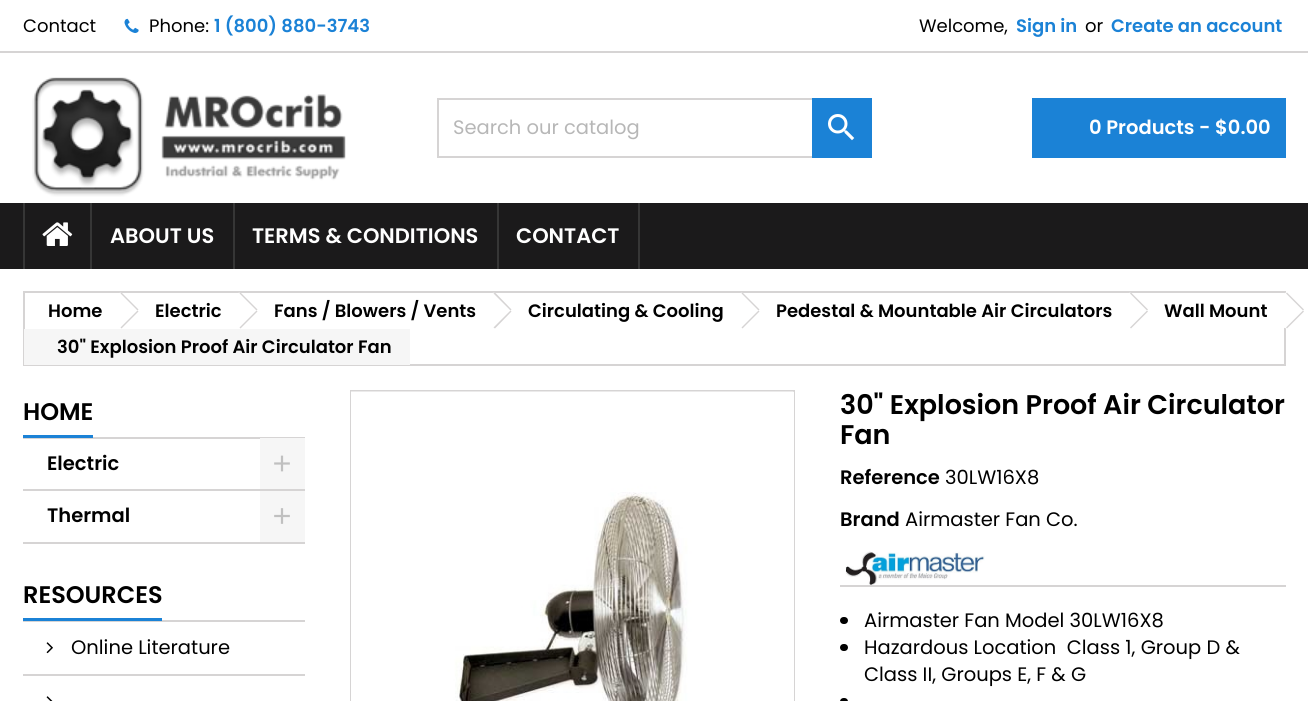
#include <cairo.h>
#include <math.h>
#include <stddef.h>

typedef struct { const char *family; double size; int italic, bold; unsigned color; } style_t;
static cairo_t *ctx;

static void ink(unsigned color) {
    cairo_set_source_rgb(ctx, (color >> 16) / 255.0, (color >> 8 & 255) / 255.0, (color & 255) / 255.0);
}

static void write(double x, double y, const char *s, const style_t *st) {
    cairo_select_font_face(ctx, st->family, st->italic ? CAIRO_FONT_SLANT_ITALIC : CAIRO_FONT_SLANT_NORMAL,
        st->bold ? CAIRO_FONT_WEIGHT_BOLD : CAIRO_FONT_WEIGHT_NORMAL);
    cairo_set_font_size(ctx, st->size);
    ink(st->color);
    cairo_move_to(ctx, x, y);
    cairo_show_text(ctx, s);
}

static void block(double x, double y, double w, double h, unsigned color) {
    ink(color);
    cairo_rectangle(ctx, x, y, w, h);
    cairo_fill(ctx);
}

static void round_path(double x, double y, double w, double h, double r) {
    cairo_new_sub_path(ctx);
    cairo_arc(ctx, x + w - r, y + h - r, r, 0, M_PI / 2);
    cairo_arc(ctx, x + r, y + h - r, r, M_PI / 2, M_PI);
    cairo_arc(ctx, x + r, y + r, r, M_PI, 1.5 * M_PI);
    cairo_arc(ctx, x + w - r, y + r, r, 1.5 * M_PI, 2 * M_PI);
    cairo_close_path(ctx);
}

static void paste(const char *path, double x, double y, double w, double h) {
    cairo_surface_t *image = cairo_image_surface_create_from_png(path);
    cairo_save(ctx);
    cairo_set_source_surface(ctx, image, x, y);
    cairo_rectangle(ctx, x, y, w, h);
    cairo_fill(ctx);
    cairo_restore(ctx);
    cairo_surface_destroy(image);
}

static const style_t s1 = {"Poppins", 18, 0, 0, 0x000000};
static const style_t s2 = {"Poppins SemiBold", 18, 0, 0, 0x1b82d6};
static const style_t s3 = {"Poppins", 19.5, 0, 0, 0xb7b7b7};
static const style_t s4 = {"Poppins SemiBold", 19.5, 0, 0, 0xffffff};
static const style_t s5 = {"Poppins SemiBold", 21, 0, 0, 0xffffff};
static const style_t s6 = {"Poppins SemiBold", 18, 0, 0, 0x000000};
static const style_t s7 = {"Poppins SemiBold", 24, 0, 0, 0x000000};
static const style_t s8 = {"Poppins SemiBold", 19.5, 0, 0, 0x000000};
static const style_t s9 = {"Poppins", 19.5, 0, 0, 0x000000};
static const style_t s10 = {"Poppins SemiBold", 27, 0, 0, 0x000000};

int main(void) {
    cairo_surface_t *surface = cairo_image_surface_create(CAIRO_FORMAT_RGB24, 1308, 701);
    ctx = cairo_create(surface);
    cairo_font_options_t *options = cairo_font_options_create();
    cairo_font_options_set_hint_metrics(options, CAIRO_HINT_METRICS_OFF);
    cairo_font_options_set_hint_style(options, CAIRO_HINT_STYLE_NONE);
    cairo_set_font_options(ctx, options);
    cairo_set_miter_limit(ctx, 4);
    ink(0xffffff);
    cairo_paint(ctx);
    block(0, 51, 1308, 2, 0xd6d4d4);
    write(23, 32, "Contact", &s1);
    paste("pic1.png", 124, 18, 15, 15);
    write(149, 32, "Phone:", &s1);
    write(214, 32, "1 (800) 880-3743", &s2);
    write(919, 32, "Welcome,", &s1);
    write(1016, 32, "Sign in", &s2);
    write(1085, 32, "or", &s1);
    write(1111, 32, "Create an account", &s2);
    paste("pic2.png", 32, 77, 314, 120);
    cairo_rectangle(ctx, 438, 99, 433, 58);
    ink(0xd6d4d4);
    cairo_stroke(ctx);
    write(453, 134, "Search our catalog", &s3);
    block(812, 98, 60, 60, 0x1b82d6);
    paste("pic3.png", 828, 114, 27, 27);
    block(1032, 98, 254, 60, 0x1b82d6);
    write(1089, 134, "0 Products - $0.00", &s4);
    block(0, 203, 1308, 66, 0x1b1a1b);
    block(23, 203, 2, 66, 0x363636);
    paste("pic4.png", 42, 222, 31, 24);
    block(90, 203, 2, 66, 0x363636);
    write(110, 243, "ABOUT US", &s5);
    block(233, 203, 2, 66, 0x363636);
    write(252, 243, "TERMS & CONDITIONS", &s5);
    block(638, 203, 2, 66, 0x363636);
    block(497, 203, 2, 66, 0x363636);
    write(516, 243, "CONTACT", &s5);
    cairo_rectangle(ctx, 24, 292, 1261, 73);
    ink(0xd6d4d4);
    cairo_stroke(ctx);
    write(48, 317, "Home", &s6);
    ink(0xffffff);
    cairo_new_path(ctx);
    cairo_move_to(ctx, 122.5, 293.5);
    cairo_line_to(ctx, 137.5, 308.5);
    cairo_curve_to(ctx, 138.5, 309.5, 138.5, 311.5, 137.5, 312.5);
    cairo_line_to(ctx, 122.5, 327.5);
    cairo_curve_to(ctx, 121.5, 328.5, 119.5, 328.5, 118.5, 327.5);
    cairo_line_to(ctx, 103.5, 312.5);
    cairo_curve_to(ctx, 102, 311.5, 102, 309.5, 103.5, 308.5);
    cairo_line_to(ctx, 118.5, 293.5);
    cairo_curve_to(ctx, 119.5, 292.5, 121.5, 292.5, 122.5, 293.5);
    cairo_close_path(ctx);
    cairo_fill(ctx);
    ink(0xd6d4d4);
    cairo_new_path(ctx);
    cairo_move_to(ctx, 121.5, 292.5);
    cairo_line_to(ctx, 138.5, 309.5);
    cairo_line_to(ctx, 137.5, 310.5);
    cairo_line_to(ctx, 120.5, 293.5);
    cairo_close_path(ctx);
    cairo_fill(ctx);
    cairo_new_path(ctx);
    cairo_move_to(ctx, 137.5, 310.5);
    cairo_line_to(ctx, 138.5, 311.5);
    cairo_line_to(ctx, 121.5, 328.5);
    cairo_line_to(ctx, 120.5, 327.5);
    cairo_close_path(ctx);
    cairo_fill(ctx);
    write(155, 317, "Electric", &s6);
    ink(0xffffff);
    cairo_new_path(ctx);
    cairo_move_to(ctx, 241.5, 293.5);
    cairo_line_to(ctx, 256.5, 308.5);
    cairo_curve_to(ctx, 257.5, 309.5, 257.5, 311.5, 256.5, 312.5);
    cairo_line_to(ctx, 241.5, 327.5);
    cairo_curve_to(ctx, 240, 328.5, 238.5, 328.5, 237, 327.5);
    cairo_line_to(ctx, 222.5, 312.5);
    cairo_curve_to(ctx, 221, 311.5, 221, 309.5, 222.5, 308.5);
    cairo_line_to(ctx, 237, 293.5);
    cairo_curve_to(ctx, 238.5, 292.5, 240, 292.5, 241.5, 293.5);
    cairo_close_path(ctx);
    cairo_fill(ctx);
    ink(0xd6d4d4);
    cairo_new_path(ctx);
    cairo_move_to(ctx, 240.5, 292.5);
    cairo_line_to(ctx, 257.5, 309.5);
    cairo_line_to(ctx, 256.5, 310.5);
    cairo_line_to(ctx, 239.5, 293.5);
    cairo_close_path(ctx);
    cairo_fill(ctx);
    cairo_new_path(ctx);
    cairo_move_to(ctx, 256.5, 310.5);
    cairo_line_to(ctx, 257.5, 311.5);
    cairo_line_to(ctx, 240.5, 328.5);
    cairo_line_to(ctx, 239.5, 327.5);
    cairo_close_path(ctx);
    cairo_fill(ctx);
    write(274, 317, "Fans / Blowers / Vents", &s6);
    ink(0xffffff);
    cairo_new_path(ctx);
    cairo_move_to(ctx, 496, 293.5);
    cairo_line_to(ctx, 510.5, 308.5);
    cairo_curve_to(ctx, 512, 309.5, 512, 311.5, 510.5, 312.5);
    cairo_line_to(ctx, 496, 327.5);
    cairo_curve_to(ctx, 494.5, 328.5, 493, 328.5, 491.5, 327.5);
    cairo_line_to(ctx, 476.5, 312.5);
    cairo_curve_to(ctx, 475.5, 311.5, 475.5, 309.5, 476.5, 308.5);
    cairo_line_to(ctx, 491.5, 293.5);
    cairo_curve_to(ctx, 493, 292.5, 494.5, 292.5, 496, 293.5);
    cairo_close_path(ctx);
    cairo_fill(ctx);
    ink(0xd6d4d4);
    cairo_new_path(ctx);
    cairo_move_to(ctx, 495, 292.5);
    cairo_line_to(ctx, 511.5, 309.5);
    cairo_line_to(ctx, 510.5, 310.5);
    cairo_line_to(ctx, 493.5, 293.5);
    cairo_close_path(ctx);
    cairo_fill(ctx);
    cairo_new_path(ctx);
    cairo_move_to(ctx, 510.5, 310.5);
    cairo_line_to(ctx, 511.5, 311.5);
    cairo_line_to(ctx, 495, 328.5);
    cairo_line_to(ctx, 493.5, 327.5);
    cairo_close_path(ctx);
    cairo_fill(ctx);
    write(528, 317, "Circulating & Cooling", &s6);
    ink(0xffffff);
    cairo_new_path(ctx);
    cairo_move_to(ctx, 743.5, 293.5);
    cairo_line_to(ctx, 758.5, 308.5);
    cairo_curve_to(ctx, 760, 309.5, 760, 311.5, 758.5, 312.5);
    cairo_line_to(ctx, 743.5, 327.5);
    cairo_curve_to(ctx, 742.5, 328.5, 740.5, 328.5, 739.5, 327.5);
    cairo_line_to(ctx, 724.5, 312.5);
    cairo_curve_to(ctx, 723.5, 311.5, 723.5, 309.5, 724.5, 308.5);
    cairo_line_to(ctx, 739.5, 293.5);
    cairo_curve_to(ctx, 740.5, 292.5, 742.5, 292.5, 743.5, 293.5);
    cairo_close_path(ctx);
    cairo_fill(ctx);
    ink(0xd6d4d4);
    cairo_new_path(ctx);
    cairo_move_to(ctx, 742.5, 292.5);
    cairo_line_to(ctx, 759.5, 309.5);
    cairo_line_to(ctx, 758.5, 310.5);
    cairo_line_to(ctx, 741.5, 293.5);
    cairo_close_path(ctx);
    cairo_fill(ctx);
    cairo_new_path(ctx);
    cairo_move_to(ctx, 758.5, 310.5);
    cairo_line_to(ctx, 759.5, 311.5);
    cairo_line_to(ctx, 742.5, 328.5);
    cairo_line_to(ctx, 741.5, 327.5);
    cairo_close_path(ctx);
    cairo_fill(ctx);
    write(776, 317, "Pedestal & Mountable Air Circulators", &s6);
    ink(0xffffff);
    cairo_new_path(ctx);
    cairo_move_to(ctx, 1132.5, 293.5);
    cairo_line_to(ctx, 1147, 308.5);
    cairo_curve_to(ctx, 1148.5, 309.5, 1148.5, 311.5, 1147, 312.5);
    cairo_line_to(ctx, 1132.5, 327.5);
    cairo_curve_to(ctx, 1131, 328.5, 1129, 328.5, 1128, 327.5);
    cairo_line_to(ctx, 1113, 312.5);
    cairo_curve_to(ctx, 1112, 311.5, 1112, 309.5, 1113, 308.5);
    cairo_line_to(ctx, 1128, 293.5);
    cairo_curve_to(ctx, 1129, 292.5, 1131, 292.5, 1132.5, 293.5);
    cairo_close_path(ctx);
    cairo_fill(ctx);
    ink(0xd6d4d4);
    cairo_new_path(ctx);
    cairo_move_to(ctx, 1131, 292.5);
    cairo_line_to(ctx, 1148, 309.5);
    cairo_line_to(ctx, 1147, 310.5);
    cairo_line_to(ctx, 1130, 293.5);
    cairo_close_path(ctx);
    cairo_fill(ctx);
    cairo_new_path(ctx);
    cairo_move_to(ctx, 1147, 310.5);
    cairo_line_to(ctx, 1148, 311.5);
    cairo_line_to(ctx, 1131, 328.5);
    cairo_line_to(ctx, 1130, 327.5);
    cairo_close_path(ctx);
    cairo_fill(ctx);
    write(1164, 317, "Wall Mount", &s6);
    ink(0xffffff);
    cairo_new_path(ctx);
    cairo_move_to(ctx, 1288, 293.5);
    cairo_line_to(ctx, 1303, 308.5);
    cairo_curve_to(ctx, 1304, 309.5, 1304, 311.5, 1303, 312.5);
    cairo_line_to(ctx, 1288, 327.5);
    cairo_curve_to(ctx, 1287, 328.5, 1285, 328.5, 1283.5, 327.5);
    cairo_line_to(ctx, 1269, 312.5);
    cairo_curve_to(ctx, 1267.5, 311.5, 1267.5, 309.5, 1269, 308.5);
    cairo_line_to(ctx, 1283.5, 293.5);
    cairo_curve_to(ctx, 1285, 292.5, 1287, 292.5, 1288, 293.5);
    cairo_close_path(ctx);
    cairo_fill(ctx);
    ink(0xd6d4d4);
    cairo_new_path(ctx);
    cairo_move_to(ctx, 1287, 292.5);
    cairo_line_to(ctx, 1304, 309.5);
    cairo_line_to(ctx, 1303, 310.5);
    cairo_line_to(ctx, 1286, 293.5);
    cairo_close_path(ctx);
    cairo_fill(ctx);
    cairo_new_path(ctx);
    cairo_move_to(ctx, 1303, 310.5);
    cairo_line_to(ctx, 1304, 311.5);
    cairo_line_to(ctx, 1287, 328.5);
    cairo_line_to(ctx, 1286, 327.5);
    cairo_close_path(ctx);
    cairo_fill(ctx);
    block(24, 329, 386, 36, 0xf6f6f6);
    write(57, 353, "30\" Explosion Proof Air Circulator Fan", &s6);
    block(23, 437, 282, 2, 0xd6d4d4);
    block(23, 435, 70, 3, 0x1b82d6);
    write(23, 420, "HOME", &s7);
    block(23, 489, 282, 2, 0xd6d4d4);
    write(47, 470, "Electric", &s8);
    block(260, 438, 45, 51, 0xf6f6f6);
    paste("pic5.png", 274, 455, 16, 17);
    block(23, 542, 282, 2, 0xd6d4d4);
    write(47, 522, "Thermal", &s8);
    block(260, 491, 45, 51, 0xf6f6f6);
    paste("pic6.png", 274, 508, 16, 16);
    block(23, 620, 282, 2, 0xd6d4d4);
    block(23, 618, 139, 3, 0x1b82d6);
    write(23, 603, "RESOURCES", &s7);
    block(23, 674, 282, 2, 0xd6d4d4);
    paste("pic7.png", 46, 642, 7, 12);
    write(71, 654, "Online Literature", &s9);
    paste("pic8.png", 46, 696, 7, 5);
    cairo_rectangle(ctx, 351, 391, 443, 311);
    ink(0xd6d4d4);
    cairo_stroke(ctx);
    block(793, 392, 1, 309, 0xffffff);
    paste("pic9.png", 351, 391, 443, 310);
    write(840, 414, "30\" Explosion Proof Air Circulator", &s10);
    write(840, 444, "Fan", &s10);
    write(840, 484, "Reference", &s8);
    write(945, 484, "30LW16X8", &s9);
    write(840, 526, "Brand", &s8);
    write(905, 526, "Airmaster Fan Co.", &s9);
    paste("pic10.png", 845, 551, 140, 34);
    block(840, 585, 446, 2, 0xd6d4d4);
    ink(0x000000);
    round_path(840, 617, 8, 7, 3.5);
    cairo_fill(ctx);
    write(864, 627, "Airmaster Fan Model 30LW16X8", &s9);
    round_path(840, 644, 8, 7, 3.5);
    cairo_fill(ctx);
    write(864, 654, "Hazardous Location  Class 1, Group D &", &s9);
    write(864, 681, "Class II, Groups E, F & G", &s9);
    round_path(840, 698, 8, 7, 3.5);
    cairo_fill(ctx);
    cairo_surface_write_to_png(surface, "screenshot.png");
    cairo_font_options_destroy(options);
    cairo_destroy(ctx);
    cairo_surface_destroy(surface);
    return 0;
}
